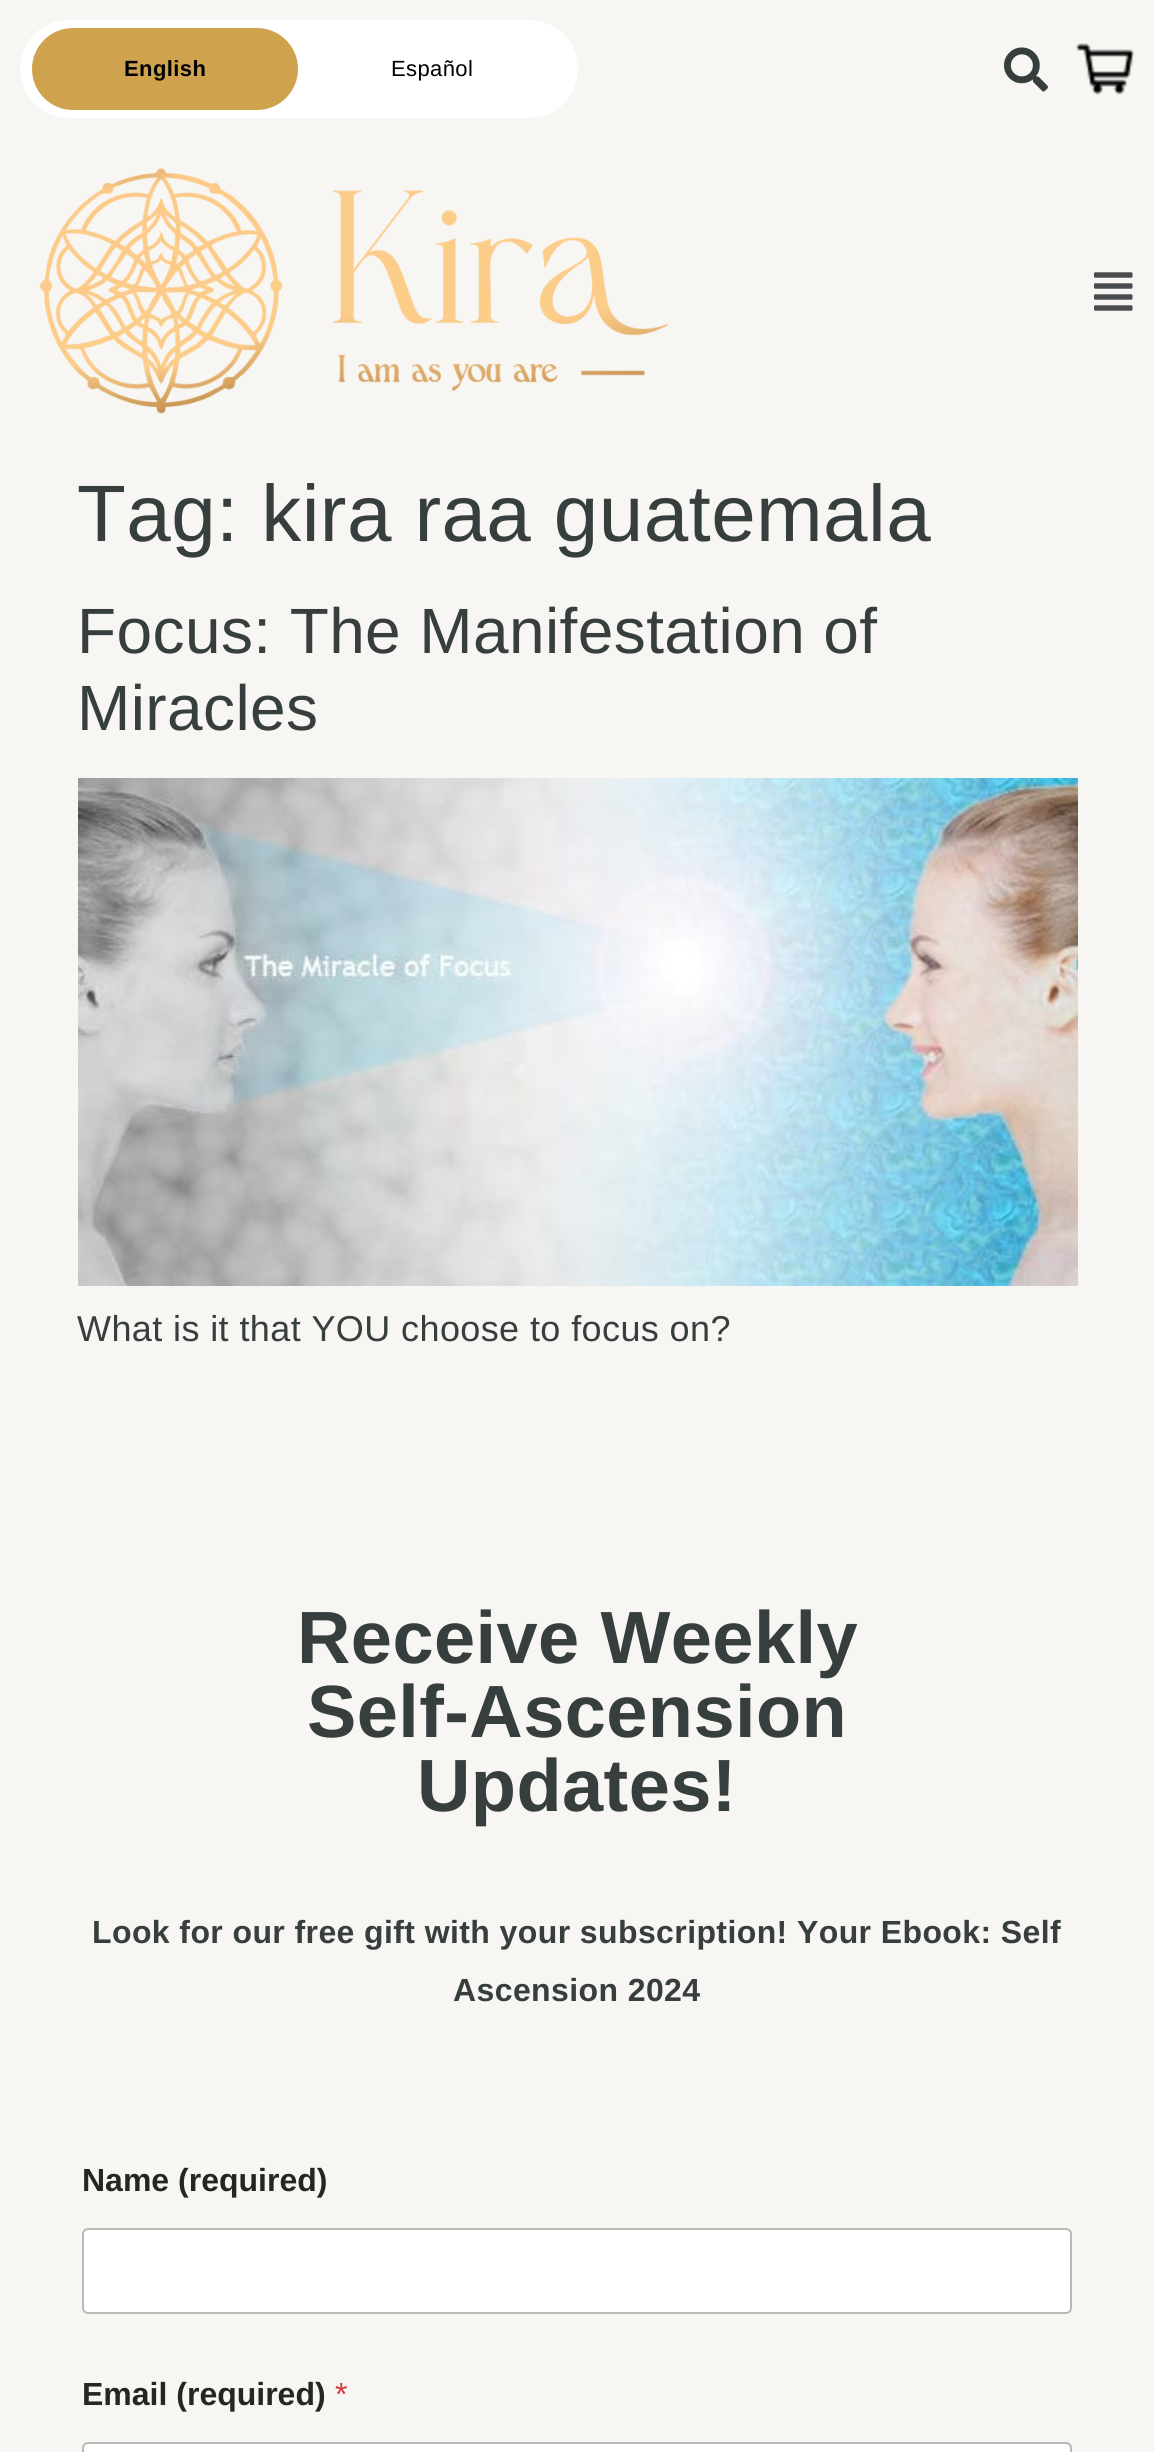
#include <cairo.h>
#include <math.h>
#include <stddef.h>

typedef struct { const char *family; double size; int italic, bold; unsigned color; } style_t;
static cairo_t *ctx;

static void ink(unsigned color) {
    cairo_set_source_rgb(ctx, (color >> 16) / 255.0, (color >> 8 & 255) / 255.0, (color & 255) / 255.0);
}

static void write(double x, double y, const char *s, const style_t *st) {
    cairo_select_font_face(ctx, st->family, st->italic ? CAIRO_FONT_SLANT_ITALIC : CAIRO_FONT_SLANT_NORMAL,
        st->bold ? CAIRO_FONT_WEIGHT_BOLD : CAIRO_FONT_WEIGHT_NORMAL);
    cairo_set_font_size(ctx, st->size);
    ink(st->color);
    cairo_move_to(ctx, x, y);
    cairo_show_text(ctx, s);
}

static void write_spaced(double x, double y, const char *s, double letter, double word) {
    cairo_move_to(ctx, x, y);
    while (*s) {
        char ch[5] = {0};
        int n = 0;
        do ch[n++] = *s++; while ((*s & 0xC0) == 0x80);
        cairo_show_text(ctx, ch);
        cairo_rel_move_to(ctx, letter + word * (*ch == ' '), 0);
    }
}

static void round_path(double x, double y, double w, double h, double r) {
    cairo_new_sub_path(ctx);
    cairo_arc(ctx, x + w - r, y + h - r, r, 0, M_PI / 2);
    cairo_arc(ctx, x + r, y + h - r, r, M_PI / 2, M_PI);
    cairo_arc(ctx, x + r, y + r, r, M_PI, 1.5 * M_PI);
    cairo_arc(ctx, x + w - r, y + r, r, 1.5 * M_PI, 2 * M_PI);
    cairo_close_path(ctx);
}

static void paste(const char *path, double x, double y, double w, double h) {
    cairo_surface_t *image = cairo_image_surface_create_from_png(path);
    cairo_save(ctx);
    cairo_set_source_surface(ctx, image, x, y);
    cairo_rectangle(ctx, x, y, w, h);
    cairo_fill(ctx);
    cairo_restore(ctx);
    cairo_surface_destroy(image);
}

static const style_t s1 = {"Liberation Sans", 32, 0, 1, 0x252524};
static const style_t s2 = {"Liberation Sans", 32, 0, 0, 0xd63637};

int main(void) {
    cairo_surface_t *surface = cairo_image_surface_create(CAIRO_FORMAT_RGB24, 1154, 2452);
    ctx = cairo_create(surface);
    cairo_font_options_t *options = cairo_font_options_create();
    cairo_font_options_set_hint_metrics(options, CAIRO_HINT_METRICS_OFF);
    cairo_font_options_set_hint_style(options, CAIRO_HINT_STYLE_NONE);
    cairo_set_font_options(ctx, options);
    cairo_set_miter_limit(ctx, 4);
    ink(0xf7f6f3);
    cairo_paint(ctx);
    ink(0xffffff);
    round_path(20, 20, 558, 98, 49);
    cairo_fill(ctx);
    ink(0xcfa24d);
    round_path(32, 28, 266, 82, 41);
    cairo_fill(ctx);
    cairo_select_font_face(ctx, "Liberation Sans", CAIRO_FONT_SLANT_NORMAL, CAIRO_FONT_WEIGHT_BOLD);
    cairo_set_font_size(ctx, 22);
    ink(0x000000);
    write_spaced(124, 76, "English", 0.4, 0);
    cairo_select_font_face(ctx, "Liberation Sans", CAIRO_FONT_SLANT_NORMAL, CAIRO_FONT_WEIGHT_NORMAL);
    write_spaced(391, 76, "Español", 0.4, 0);
    paste("pic1.png", 1004, 47, 44, 45);
    paste("pic2.png", 1076, 43, 58, 52);
    paste("pic3.png", 39, 168, 630, 246);
    paste("pic4.png", 1094, 272, 39, 39);
    cairo_set_font_size(ctx, 80);
    ink(0x373f3e);
    write_spaced(77, 541, "Tag: kira raa guatemala", 0.4, 0);
    cairo_set_font_size(ctx, 64);
    write_spaced(77, 653, "Focus: The Manifestation of", 0.4, 0);
    write_spaced(77, 730, "Miracles", 0.4, 0);
    paste("pic5.png", 78, 778, 1000, 508);
    cairo_set_font_size(ctx, 36);
    write_spaced(77, 1341, "What is it that YOU choose to focus on?", 0.4, 0);
    cairo_select_font_face(ctx, "Liberation Sans", CAIRO_FONT_SLANT_NORMAL, CAIRO_FONT_WEIGHT_BOLD);
    cairo_set_font_size(ctx, 74);
    write_spaced(297, 1663, "Receive Weekly", 0.4, 0);
    write_spaced(307, 1737, "Self-Ascension", 0.4, 0);
    write_spaced(417, 1811, "Updates!", 0.4, 0);
    cairo_set_font_size(ctx, 32);
    write_spaced(92, 1943, "Look for our free gift with your subscription! Your Ebook: Self", 0.4, 0);
    write_spaced(453, 2001, "Ascension 2024", 0.4, 0);
    write(82, 2191, "Name (required)", &s1);
    ink(0xffffff);
    round_path(83, 2229, 988, 84, 5);
    cairo_fill_preserve(ctx);
    ink(0xb9b9b6);
    cairo_stroke(ctx);
    write(82, 2405, "Email (required)", &s1);
    write(335, 2405, "*", &s2);
    ink(0xffffff);
    round_path(84, 2444, 986, 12, 4);
    cairo_fill(ctx);
    round_path(83, 2443, 988, 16, 5);
    ink(0xb9b9b6);
    cairo_stroke(ctx);
    cairo_surface_write_to_png(surface, "screenshot.png");
    cairo_font_options_destroy(options);
    cairo_destroy(ctx);
    cairo_surface_destroy(surface);
    return 0;
}
